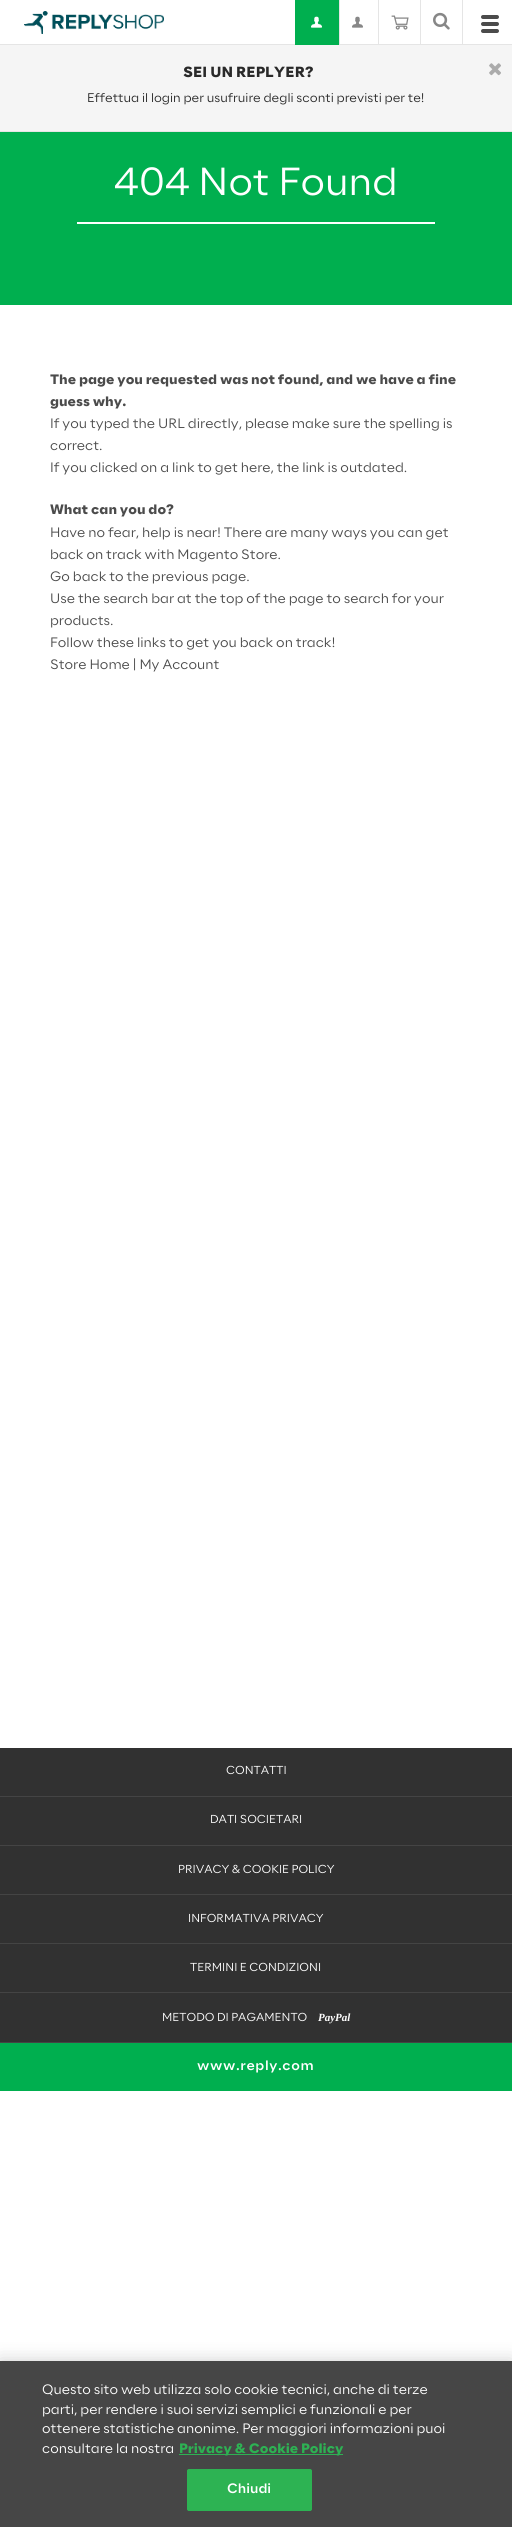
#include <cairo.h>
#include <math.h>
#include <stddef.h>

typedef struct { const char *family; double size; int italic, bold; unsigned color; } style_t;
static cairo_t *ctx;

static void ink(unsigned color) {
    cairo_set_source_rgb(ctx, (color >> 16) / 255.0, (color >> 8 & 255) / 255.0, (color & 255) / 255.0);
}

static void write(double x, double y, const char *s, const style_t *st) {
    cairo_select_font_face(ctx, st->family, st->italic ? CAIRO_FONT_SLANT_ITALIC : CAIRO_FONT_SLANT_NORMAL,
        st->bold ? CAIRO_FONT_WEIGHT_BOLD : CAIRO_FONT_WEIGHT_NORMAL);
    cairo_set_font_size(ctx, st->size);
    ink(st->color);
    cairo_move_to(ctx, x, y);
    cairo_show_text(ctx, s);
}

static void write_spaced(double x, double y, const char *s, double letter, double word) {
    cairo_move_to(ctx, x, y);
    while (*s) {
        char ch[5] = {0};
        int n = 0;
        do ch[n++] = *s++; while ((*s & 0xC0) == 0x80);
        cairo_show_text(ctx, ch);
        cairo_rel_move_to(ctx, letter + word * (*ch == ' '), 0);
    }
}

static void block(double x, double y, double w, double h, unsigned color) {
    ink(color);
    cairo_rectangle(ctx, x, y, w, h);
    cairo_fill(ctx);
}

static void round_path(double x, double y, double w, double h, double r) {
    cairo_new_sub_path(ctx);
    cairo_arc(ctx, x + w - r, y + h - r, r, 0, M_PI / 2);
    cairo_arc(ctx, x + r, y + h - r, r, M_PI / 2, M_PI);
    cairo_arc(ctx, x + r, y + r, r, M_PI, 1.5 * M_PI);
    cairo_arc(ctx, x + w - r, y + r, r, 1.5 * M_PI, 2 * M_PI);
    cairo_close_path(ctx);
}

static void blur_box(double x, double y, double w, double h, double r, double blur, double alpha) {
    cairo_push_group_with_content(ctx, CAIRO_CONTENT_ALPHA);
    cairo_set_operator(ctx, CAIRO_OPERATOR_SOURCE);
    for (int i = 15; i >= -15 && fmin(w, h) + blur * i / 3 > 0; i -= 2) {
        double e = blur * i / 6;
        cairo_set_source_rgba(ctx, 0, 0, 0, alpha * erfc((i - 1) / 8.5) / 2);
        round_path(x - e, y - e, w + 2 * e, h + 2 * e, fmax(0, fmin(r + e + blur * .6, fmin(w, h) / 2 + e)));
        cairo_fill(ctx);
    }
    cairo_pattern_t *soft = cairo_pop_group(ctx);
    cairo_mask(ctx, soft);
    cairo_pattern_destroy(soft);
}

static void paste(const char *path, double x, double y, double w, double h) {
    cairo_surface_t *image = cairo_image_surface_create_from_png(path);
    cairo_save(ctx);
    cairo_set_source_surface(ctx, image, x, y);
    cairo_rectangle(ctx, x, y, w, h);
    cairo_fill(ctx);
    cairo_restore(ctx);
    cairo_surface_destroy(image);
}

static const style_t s1 = {"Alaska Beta", 14, 0, 1, 0x292929};
static const style_t s2 = {"Alaska Beta Light", 12, 0, 0, 0x292929};
static const style_t s3 = {"Alaska Beta Light", 37.25, 0, 0, 0xffffff};
static const style_t s4 = {"Alaska Beta", 13, 0, 1, 0x4b4b4b};
static const style_t s5 = {"Alaska Beta Light", 13, 0, 0, 0x4b4b4b};
static const style_t s6 = {"Alaska Beta Light", 11, 0, 0, 0xffffff};
static const style_t s7 = {"Liberation Serif", 11, 1, 1, 0xffffff};
static const style_t s8 = {"Alaska Beta Light", 13, 0, 0, 0xffffff};
static const style_t s9 = {"Alaska Beta", 13, 0, 1, 0x2db253};
static const style_t s10 = {"Alaska Beta Medium", 13, 0, 0, 0xffffff};

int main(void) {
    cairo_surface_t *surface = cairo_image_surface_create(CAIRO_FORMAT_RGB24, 512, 2527);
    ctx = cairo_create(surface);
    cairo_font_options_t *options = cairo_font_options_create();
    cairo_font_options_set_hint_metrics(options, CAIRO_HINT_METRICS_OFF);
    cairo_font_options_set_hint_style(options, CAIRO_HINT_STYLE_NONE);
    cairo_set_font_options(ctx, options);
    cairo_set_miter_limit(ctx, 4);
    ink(0xffffff);
    cairo_paint(ctx);
    block(0, 44, 512, 1, 0xe5e5e5);
    block(295, 0, 44, 45, 0x00af4f);
    paste("pic1.png", 311, 16, 11, 12);
    block(339, 0, 1, 45, 0xe5e5e5);
    paste("pic2.png", 352, 16, 11, 12);
    block(378, 0, 1, 45, 0xe5e5e5);
    paste("pic3.png", 391, 15, 18, 15);
    block(420, 0, 1, 45, 0xe5e5e5);
    paste("pic4.png", 433, 12, 17, 18);
    block(462, 0, 1, 45, 0xe5e5e5);
    paste("pic5.png", 24, 11, 140, 23);
    paste("pic6.png", 481, 15, 18, 18);
    block(0, 45, 512, 86, 0xf5f5f5);
    block(0, 131, 512, 1, 0xe5e5e5);
    write(183, 77, "SEI UN REPLYER?", &s1);
    write(87, 102, "Effettua il login per usufruire degli sconti previsti per te!", &s2);
    paste("pic7.png", 489, 63, 12, 13);
    block(0, 132, 512, 173, 0x00af4f);
    write(114, 195, "404 Not Found", &s3);
    block(77, 222, 358, 2, 0xffffff);
    write(50, 384, "The page you requested was not found, and we have a fine", &s4);
    write(50, 406, "guess why.", &s4);
    write(50, 428, "If you typed the URL directly, please make sure the spelling is", &s5);
    write(50, 450, "correct.", &s5);
    write(50, 472, "If you clicked on a link to get here, the link is outdated.", &s5);
    write(50, 514, "What can you do?", &s4);
    write(50, 537, "Have no fear, help is near! There are many ways you can get", &s5);
    write(50, 559, "back on track with Magento Store.", &s5);
    write(50, 581, "Go back to the previous page.", &s5);
    write(50, 603, "Use the search bar at the top of the page to search for your", &s5);
    write(50, 625, "products.", &s5);
    write(50, 647, "Follow these links to get you back on track!", &s5);
    write(50, 669, "Store Home | My Account", &s5);
    block(0, 1748, 512, 294, 0x313131);
    block(0, 1796, 512, 1, 0x444444);
    write(226, 1774, "CONTATTI", &s6);
    block(0, 1845, 512, 1, 0x444444);
    write(210, 1823, "DATI SOCIETARI", &s6);
    block(0, 1894, 512, 1, 0x444444);
    write(178, 1873, "PRIVACY & COOKIE POLICY", &s6);
    block(0, 1943, 512, 1, 0x444444);
    write(188, 1922, "INFORMATIVA PRIVACY", &s6);
    block(0, 1992, 512, 1, 0x444444);
    write(190, 1971, "TERMINI E CONDIZIONI", &s6);
    block(0, 2042, 512, 1, 0x444444);
    write(162, 2021, "METODO DI PAGAMENTO", &s6);
    write(318, 2021, "PayPal", &s7);
    block(0, 2043, 512, 48, 0x00af4f);
    cairo_select_font_face(ctx, "Alaska Beta Medium", CAIRO_FONT_SLANT_NORMAL, CAIRO_FONT_WEIGHT_NORMAL);
    cairo_set_font_size(ctx, 13);
    ink(0xffffff);
    write_spaced(197, 2070, "www.reply.com", 0.6, 0);
    ink(0x000000);
    blur_box(0, 2361, 512, 166, 0, 9, 0.2);
    block(0, 2361, 512, 166, 0x464646);
    write(42, 2394, "Questo sito web utilizza solo cookie tecnici, anche di terze", &s8);
    write(42, 2414, "parti, per rendere i suoi servizi semplici e funzionali e per", &s8);
    write(42, 2433, "ottenere statistiche anonime. Per maggiori informazioni puoi", &s8);
    write(42, 2453, "consultare la nostra", &s8);
    block(179, 2454, 164, 1, 0x2db253);
    write(179, 2453, "Privacy & Cookie Policy", &s9);
    ink(0x2db353);
    round_path(187.5, 2469.5, 124, 41, 1.5);
    cairo_fill_preserve(ctx);
    cairo_set_line_width(ctx, 1);
    cairo_stroke(ctx);
    write(227, 2493, "Chiudi", &s10);
    cairo_surface_write_to_png(surface, "screenshot.png");
    cairo_font_options_destroy(options);
    cairo_destroy(ctx);
    cairo_surface_destroy(surface);
    return 0;
}
